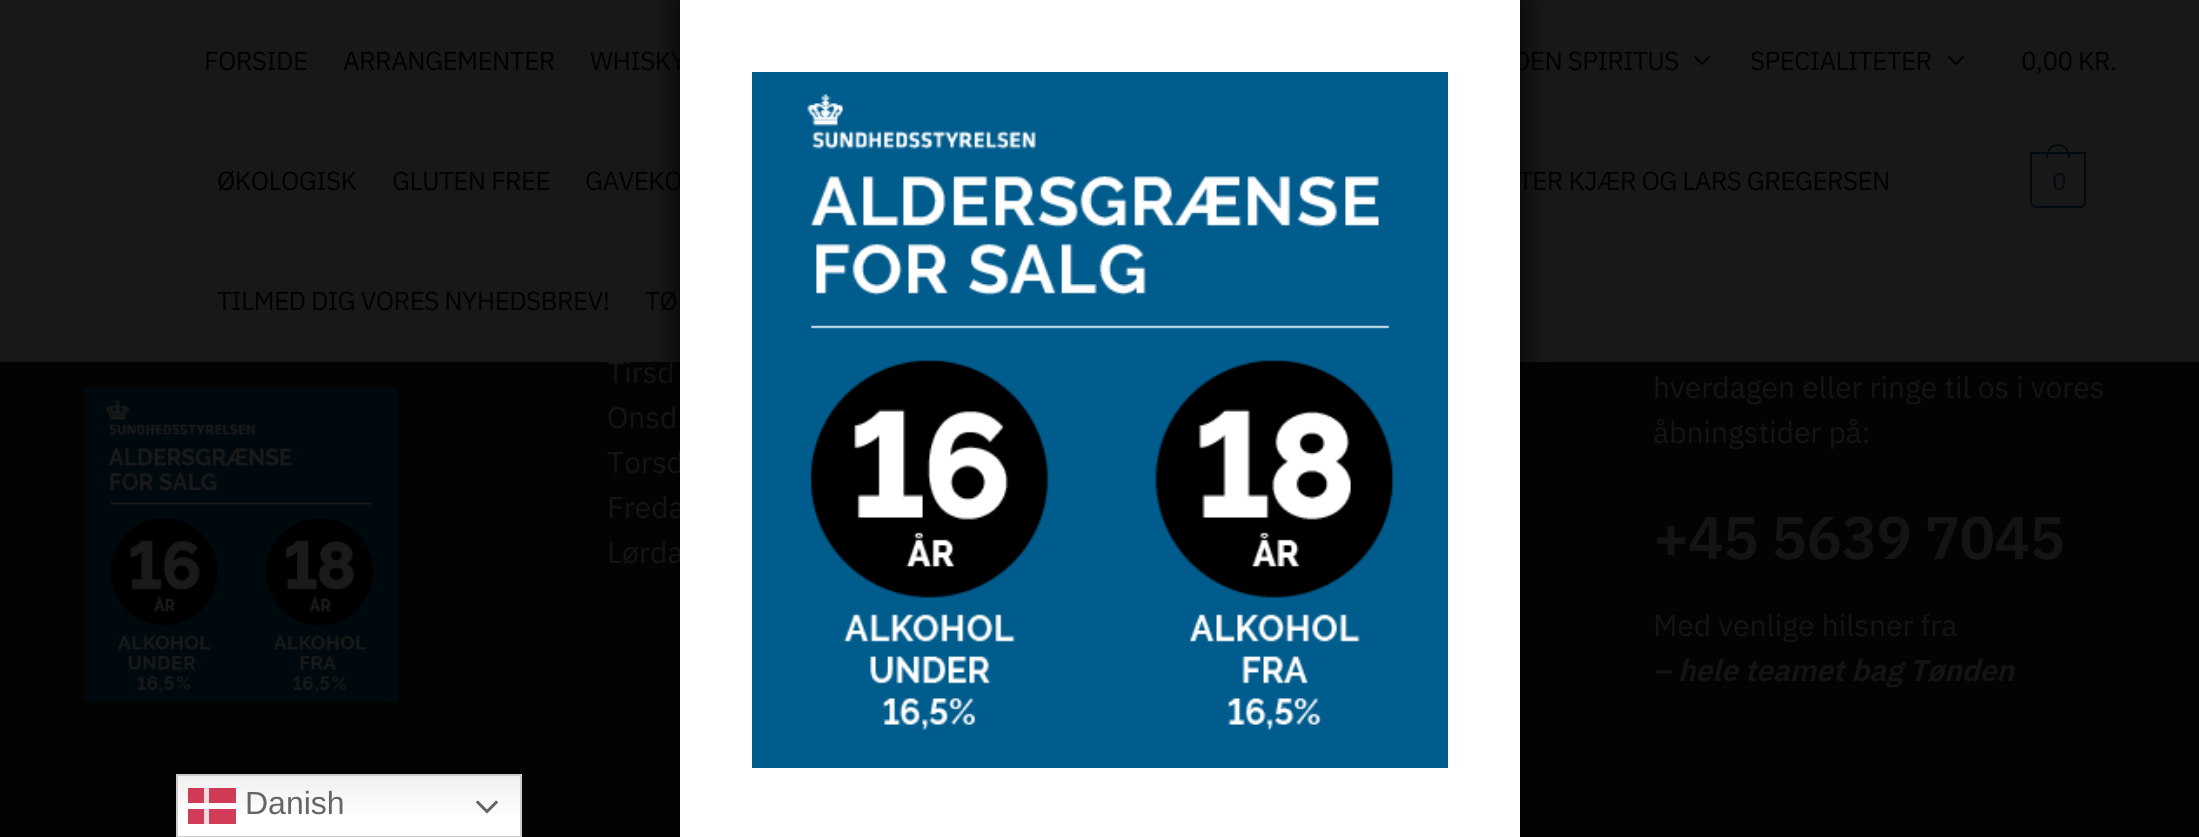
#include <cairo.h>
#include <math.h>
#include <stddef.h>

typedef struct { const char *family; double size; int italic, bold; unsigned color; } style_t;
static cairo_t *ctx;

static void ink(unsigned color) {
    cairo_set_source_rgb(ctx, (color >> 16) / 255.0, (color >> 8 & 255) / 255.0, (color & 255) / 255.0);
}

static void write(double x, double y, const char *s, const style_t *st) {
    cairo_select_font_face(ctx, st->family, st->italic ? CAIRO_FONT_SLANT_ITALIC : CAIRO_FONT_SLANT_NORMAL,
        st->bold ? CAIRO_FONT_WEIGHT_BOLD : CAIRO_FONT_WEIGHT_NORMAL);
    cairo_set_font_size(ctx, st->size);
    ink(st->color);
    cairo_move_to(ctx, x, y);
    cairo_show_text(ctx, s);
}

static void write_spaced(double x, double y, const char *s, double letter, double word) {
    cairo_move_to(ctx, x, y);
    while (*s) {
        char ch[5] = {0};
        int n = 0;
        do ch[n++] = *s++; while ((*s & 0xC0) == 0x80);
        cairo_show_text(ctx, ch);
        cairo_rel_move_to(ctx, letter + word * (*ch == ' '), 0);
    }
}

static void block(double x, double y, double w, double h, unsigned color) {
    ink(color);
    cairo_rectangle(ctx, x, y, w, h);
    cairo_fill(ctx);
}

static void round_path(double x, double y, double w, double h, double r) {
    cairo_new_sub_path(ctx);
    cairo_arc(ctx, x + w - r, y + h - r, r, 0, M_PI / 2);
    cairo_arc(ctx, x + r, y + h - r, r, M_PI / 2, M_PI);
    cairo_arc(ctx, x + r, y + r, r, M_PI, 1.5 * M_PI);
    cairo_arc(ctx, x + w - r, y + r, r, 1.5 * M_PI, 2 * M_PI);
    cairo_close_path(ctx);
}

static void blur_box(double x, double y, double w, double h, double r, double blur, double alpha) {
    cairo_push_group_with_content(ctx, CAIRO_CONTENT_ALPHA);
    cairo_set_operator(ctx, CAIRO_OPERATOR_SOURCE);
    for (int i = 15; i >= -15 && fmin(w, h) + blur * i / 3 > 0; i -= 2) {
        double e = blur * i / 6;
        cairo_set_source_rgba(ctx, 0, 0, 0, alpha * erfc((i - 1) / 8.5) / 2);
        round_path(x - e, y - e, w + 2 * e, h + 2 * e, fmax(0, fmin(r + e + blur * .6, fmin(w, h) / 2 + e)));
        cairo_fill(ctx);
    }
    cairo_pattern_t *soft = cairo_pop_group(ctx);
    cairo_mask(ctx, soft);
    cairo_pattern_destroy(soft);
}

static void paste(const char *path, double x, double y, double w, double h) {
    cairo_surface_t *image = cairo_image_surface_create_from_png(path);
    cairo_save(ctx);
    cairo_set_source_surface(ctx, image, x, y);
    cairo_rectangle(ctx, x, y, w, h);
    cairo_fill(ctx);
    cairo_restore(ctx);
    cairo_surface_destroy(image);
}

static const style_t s1 = {"IBM Plex Sans", 30, 0, 0, 0x141414};
static const style_t s2 = {"IBM Plex Sans SemiBold", 30, 1, 0, 0x141414};
static const style_t s3 = {"Liberation Sans", 32, 0, 0, 0x666666};

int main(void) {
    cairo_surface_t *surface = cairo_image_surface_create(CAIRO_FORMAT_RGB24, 2199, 837);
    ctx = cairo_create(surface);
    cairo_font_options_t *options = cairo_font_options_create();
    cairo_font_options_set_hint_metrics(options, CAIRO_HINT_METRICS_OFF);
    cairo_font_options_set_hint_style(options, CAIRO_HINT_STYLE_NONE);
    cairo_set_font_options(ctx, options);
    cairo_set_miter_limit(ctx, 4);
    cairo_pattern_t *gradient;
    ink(0x030303);
    cairo_paint(ctx);
    write(607, 383, "Tirsd", &s1);
    block(0, 0, 2199, 362, 0x191818);
    ink(0x000000);
    blur_box(680, 0, 840, 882, 0, 15, 1);
    cairo_set_font_size(ctx, 26);
    ink(0x010101);
    write_spaced(590, 70, "WHISKY", -0.6, 0);
    write_spaced(1513, 70, "DEN SPIRITUS", -0.6, 0);
    write_spaced(585, 190, "GAVEKO", -0.6, 0);
    write_spaced(1518, 190, "TER KJÆR OG LARS GREGERSEN", -0.6, 0);
    write(607, 473, "Torsd", &s1);
    write(607, 518, "Freda", &s1);
    write(607, 563, "Lørda", &s1);
    block(680, 0, 840, 837, 0xffffff);
    paste("pic1.png", 752, 72, 696, 696);
    cairo_set_font_size(ctx, 26);
    ink(0x010101);
    write_spaced(204, 70, "FORSIDE", -0.6, 0);
    write_spaced(343, 70, "ARRANGEMENTER", -0.6, 0);
    cairo_new_path(ctx);
    cairo_move_to(ctx, 1709, 57);
    cairo_line_to(ctx, 1702, 64);
    cairo_line_to(ctx, 1695, 57);
    cairo_set_line_cap(ctx, CAIRO_LINE_CAP_ROUND);
    cairo_set_line_join(ctx, CAIRO_LINE_JOIN_ROUND);
    cairo_stroke(ctx);
    write_spaced(1750, 70, "SPECIALITETER", -0.6, 0);
    cairo_new_path(ctx);
    cairo_move_to(ctx, 1963, 57);
    cairo_line_to(ctx, 1956, 64);
    cairo_line_to(ctx, 1949, 57);
    cairo_stroke(ctx);
    write_spaced(217, 190, "ØKOLOGISK", -0.6, 0);
    write_spaced(392, 190, "GLUTEN FREE", -0.6, 0);
    write_spaced(217, 310, "TILMED DIG VORES NYHEDSBREV!", -0.6, 0);
    write_spaced(645, 310, "TØ", -0.6, 0);
    write_spaced(2021, 70, "0,00 KR.", -0.6, 0);
    cairo_new_path(ctx);
    cairo_move_to(ctx, 2031, 153);
    cairo_line_to(ctx, 2085, 153);
    cairo_line_to(ctx, 2085, 202);
    cairo_curve_to(ctx, 2085, 205, 2083, 207, 2080, 207);
    cairo_line_to(ctx, 2036, 207);
    cairo_curve_to(ctx, 2033, 207, 2031, 205, 2031, 202);
    cairo_close_path(ctx);
    ink(0x010a0f);
    cairo_set_line_cap(ctx, CAIRO_LINE_CAP_BUTT);
    cairo_set_line_join(ctx, CAIRO_LINE_JOIN_MITER);
    cairo_stroke(ctx);
    cairo_set_fill_rule(ctx, CAIRO_FILL_RULE_EVEN_ODD);
    cairo_new_path(ctx);
    cairo_move_to(ctx, 2058, 144);
    cairo_curve_to(ctx, 2064.5, 144, 2070, 149.5, 2070, 156);
    cairo_line_to(ctx, 2070, 158);
    cairo_line_to(ctx, 2046, 158);
    cairo_line_to(ctx, 2046, 156);
    cairo_curve_to(ctx, 2046, 149.5, 2051.5, 144, 2058, 144);
    cairo_close_path(ctx);
    cairo_move_to(ctx, 2058, 146);
    cairo_curve_to(ctx, 2063.5, 146, 2068, 150.5, 2068, 156);
    cairo_line_to(ctx, 2068, 158);
    cairo_line_to(ctx, 2048, 158);
    cairo_line_to(ctx, 2048, 156);
    cairo_curve_to(ctx, 2048, 150.5, 2052.5, 146, 2058, 146);
    cairo_close_path(ctx);
    cairo_fill(ctx);
    cairo_set_font_size(ctx, 24);
    write_spaced(2052, 190, "0", -1, 0);
    paste("pic2.png", 84, 388, 314, 314);
    write(607, 428, "Onsd", &s1);
    write(1653, 398, "hverdagen eller ringe til os i vores", &s1);
    write(1653, 443, "åbningstider på:", &s1);
    cairo_select_font_face(ctx, "IBM Plex Sans SemiBold", CAIRO_FONT_SLANT_NORMAL, CAIRO_FONT_WEIGHT_NORMAL);
    cairo_set_font_size(ctx, 60);
    write_spaced(1653, 559, "+45 5639 7045", -1, 0);
    write(1653, 636, "Med venlige hilsner fra", &s1);
    write(1653, 681, "– hele teamet bag Tønden", &s2);
    gradient = cairo_pattern_create_linear(349, 774, 349, 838);
    cairo_pattern_add_color_stop_rgba(gradient, 0, 0.937, 0.937, 0.937, 1);
    cairo_pattern_add_color_stop_rgba(gradient, 0.7, 1, 1, 1, 1);
    cairo_set_source(ctx, gradient);
    cairo_pattern_destroy(gradient);
    cairo_rectangle(ctx, 178, 776, 342, 60);
    cairo_fill(ctx);
    gradient = cairo_pattern_create_linear(349, 774, 349, 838);
    cairo_pattern_add_color_stop_rgba(gradient, 0, 0.808, 0.224, 0.337, 1);
    cairo_pattern_add_color_stop_rgba(gradient, 0.7, 0.82, 0.239, 0.349, 1);
    cairo_set_source(ctx, gradient);
    cairo_pattern_destroy(gradient);
    cairo_rectangle(ctx, 188, 788, 48, 36);
    cairo_fill(ctx);
    cairo_rectangle(ctx, 177, 775, 344, 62);
    ink(0xcccccc);
    cairo_stroke(ctx);
    block(204, 788, 5, 36, 0xf6d8de);
    write(245, 814, "Danish", &s3);
    paste("pic3.png", 476, 800, 22, 14);
    block(188, 803, 48, 6, 0xfefefe);
    cairo_surface_write_to_png(surface, "screenshot.png");
    cairo_font_options_destroy(options);
    cairo_destroy(ctx);
    cairo_surface_destroy(surface);
    return 0;
}
